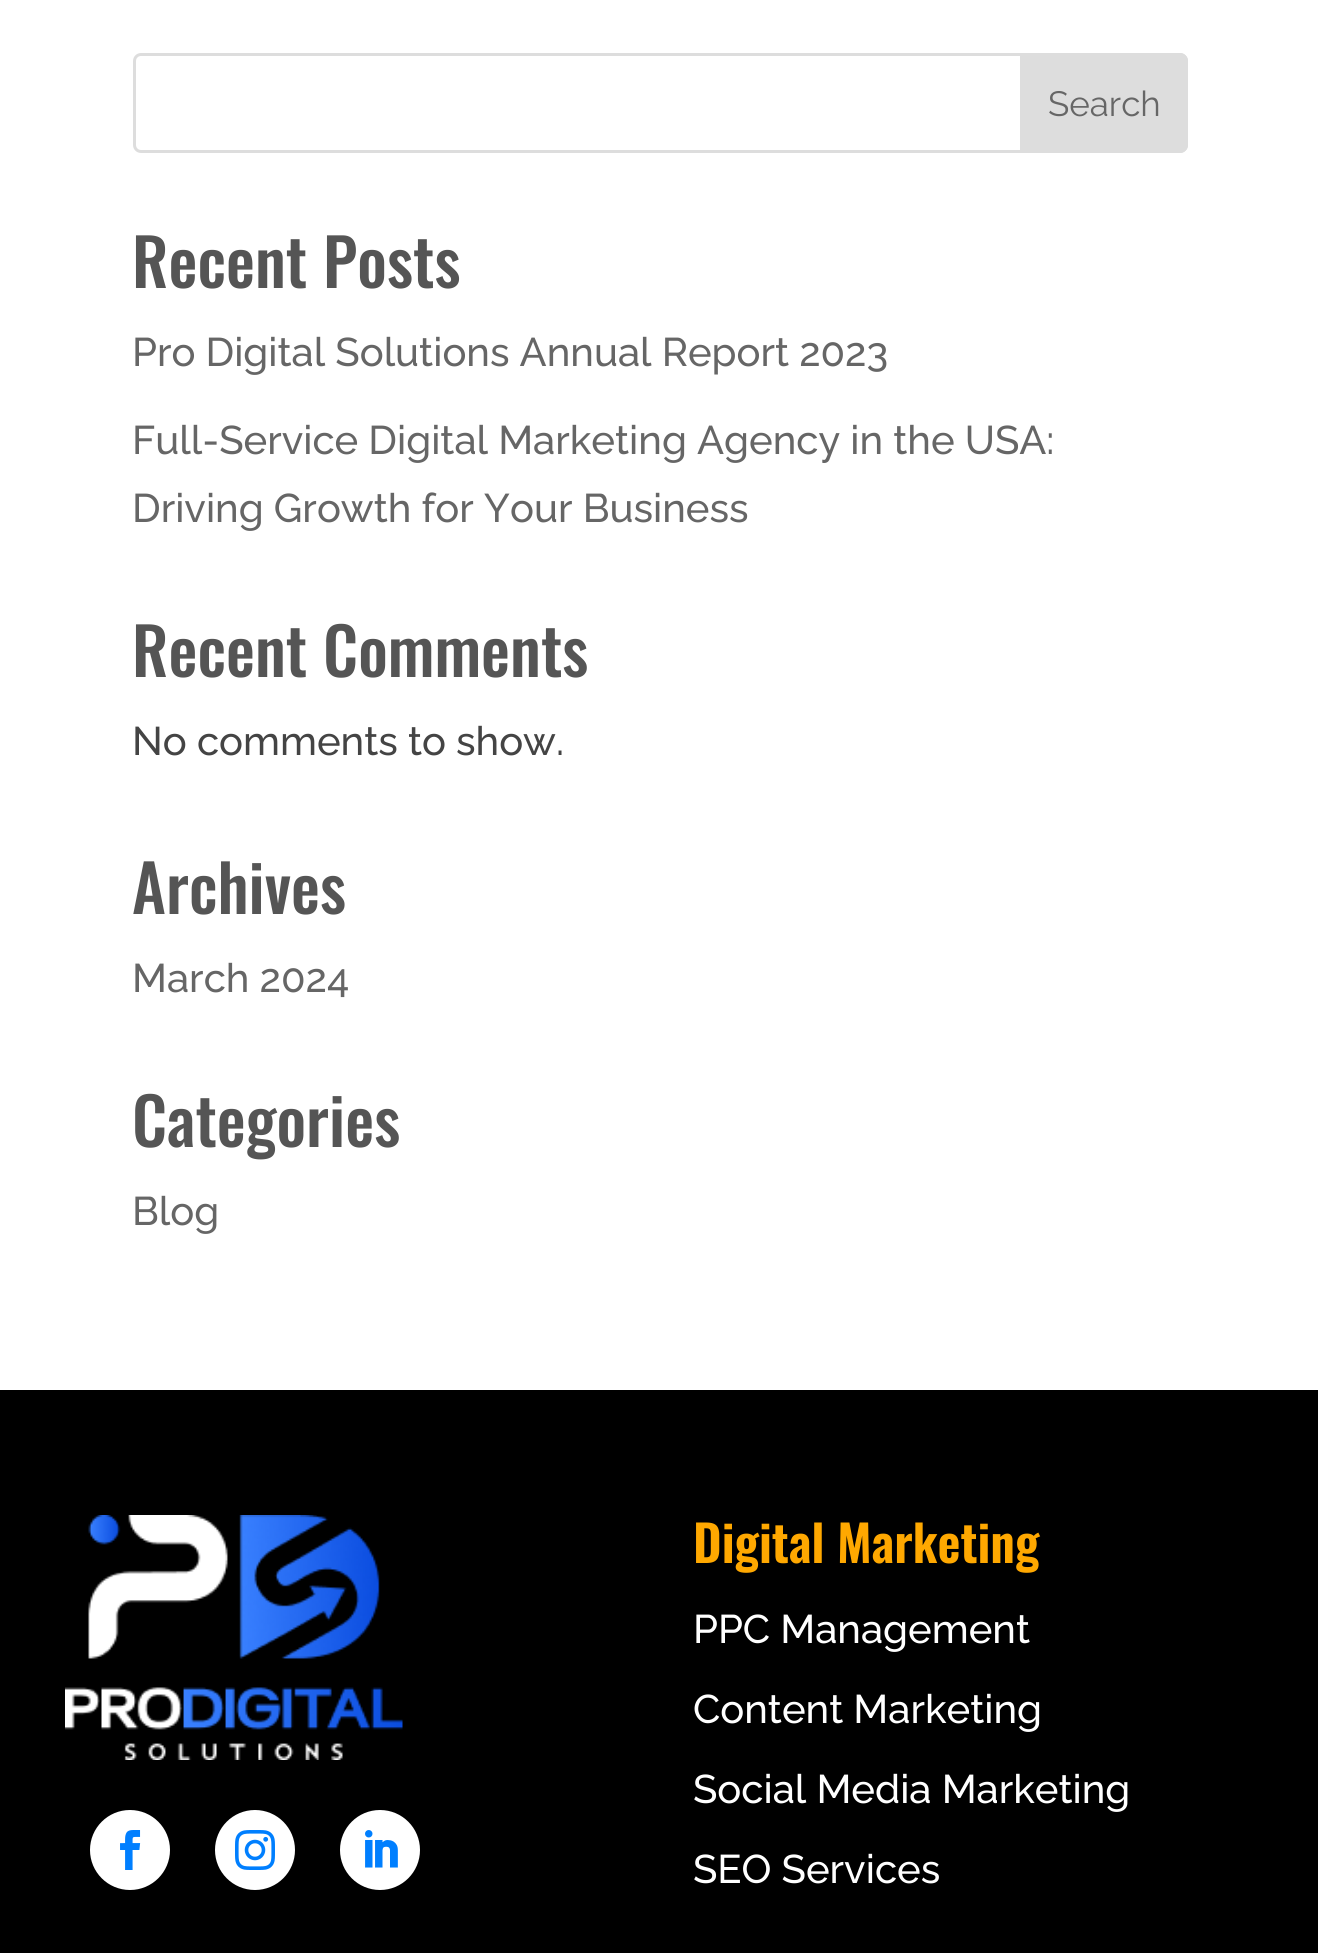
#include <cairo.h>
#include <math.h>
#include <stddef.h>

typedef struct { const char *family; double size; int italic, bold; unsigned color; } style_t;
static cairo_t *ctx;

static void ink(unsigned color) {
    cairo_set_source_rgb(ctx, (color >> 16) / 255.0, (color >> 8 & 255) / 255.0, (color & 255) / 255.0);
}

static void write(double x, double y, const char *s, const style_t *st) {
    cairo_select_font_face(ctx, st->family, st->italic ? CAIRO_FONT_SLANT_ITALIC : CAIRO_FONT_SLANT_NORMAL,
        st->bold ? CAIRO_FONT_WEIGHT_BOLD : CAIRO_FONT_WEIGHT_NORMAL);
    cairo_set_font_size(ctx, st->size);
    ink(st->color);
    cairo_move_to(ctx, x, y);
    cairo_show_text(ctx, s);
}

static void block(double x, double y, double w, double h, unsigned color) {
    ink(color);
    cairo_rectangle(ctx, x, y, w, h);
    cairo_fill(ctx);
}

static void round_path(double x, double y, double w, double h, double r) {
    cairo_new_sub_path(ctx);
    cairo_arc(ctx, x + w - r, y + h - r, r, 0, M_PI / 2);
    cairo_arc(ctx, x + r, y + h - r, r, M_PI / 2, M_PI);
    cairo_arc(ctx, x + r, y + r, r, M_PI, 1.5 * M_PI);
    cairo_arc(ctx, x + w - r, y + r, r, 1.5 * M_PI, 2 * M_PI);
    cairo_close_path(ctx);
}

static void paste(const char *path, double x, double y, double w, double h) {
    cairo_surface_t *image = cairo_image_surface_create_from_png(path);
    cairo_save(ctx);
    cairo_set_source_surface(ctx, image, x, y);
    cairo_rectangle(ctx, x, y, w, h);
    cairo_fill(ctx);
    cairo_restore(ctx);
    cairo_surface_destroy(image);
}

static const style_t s1 = {"Raleway", 35, 0, 0, 0x666666};
static const style_t s2 = {"Oswald Medium", 65, 0, 0, 0x555555};
static const style_t s3 = {"Raleway Medium", 40, 0, 0, 0x666666};
static const style_t s4 = {"Raleway Medium", 40, 0, 0, 0x444444};
static const style_t s5 = {"Oswald SemiBold", 50, 0, 0, 0xffa800};
static const style_t s6 = {"Raleway Medium", 40, 0, 0, 0xffffff};

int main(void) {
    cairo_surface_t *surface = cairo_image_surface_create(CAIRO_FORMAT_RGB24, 1318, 1953);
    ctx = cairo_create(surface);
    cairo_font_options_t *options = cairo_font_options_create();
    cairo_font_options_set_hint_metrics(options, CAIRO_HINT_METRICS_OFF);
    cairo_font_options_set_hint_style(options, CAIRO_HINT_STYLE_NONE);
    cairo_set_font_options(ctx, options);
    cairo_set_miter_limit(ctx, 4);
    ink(0xffffff);
    cairo_paint(ctx);
    round_path(134.5, 54.5, 1052, 97, 6.5);
    ink(0xdddddd);
    cairo_set_line_width(ctx, 3);
    cairo_stroke(ctx);
    cairo_new_path(ctx);
    cairo_move_to(ctx, 1021.5, 54.5);
    cairo_line_to(ctx, 1180, 54.5);
    cairo_curve_to(ctx, 1183.5, 54.5, 1186.5, 57.5, 1186.5, 61);
    cairo_line_to(ctx, 1186.5, 145);
    cairo_curve_to(ctx, 1186.5, 148.5, 1183.5, 151.5, 1180, 151.5);
    cairo_line_to(ctx, 1021.5, 151.5);
    cairo_close_path(ctx);
    cairo_fill_preserve(ctx);
    cairo_stroke(ctx);
    write(1048, 116, "Search", &s1);
    write(132, 288, "Recent Posts", &s2);
    write(132, 366, "Pro Digital Solutions Annual Report 2023", &s3);
    write(132, 454, "Full-Service Digital Marketing Agency in the USA:", &s3);
    write(132, 522, "Driving Growth for Your Business", &s3);
    write(132, 677, "Recent Comments", &s2);
    write(132, 755, "No comments to show.", &s4);
    write(132, 914, "Archives", &s2);
    write(132, 992, "March 2024", &s3);
    write(132, 1147, "Categories", &s2);
    write(132, 1225, "Blog", &s3);
    block(0, 1390, 1318, 563, 0x000000);
    paste("pic1.png", 65, 1515, 338, 245);
    ink(0xffffff);
    cairo_arc(ctx, 130, 1850, 40, 0, 2 * M_PI);
    cairo_fill(ctx);
    paste("pic2.png", 120, 1830, 21, 40);
    cairo_arc(ctx, 255, 1850, 40, 0, 2 * M_PI);
    cairo_fill(ctx);
    paste("pic3.png", 235, 1830, 40, 40);
    cairo_arc(ctx, 380, 1850, 40, 0, 2 * M_PI);
    cairo_fill(ctx);
    paste("pic4.png", 365, 1830, 33, 38);
    write(693, 1563, "Digital Marketing", &s5);
    write(693, 1643, "PPC Management", &s6);
    write(693, 1723, "Content Marketing", &s6);
    write(693, 1803, "Social Media Marketing", &s6);
    write(693, 1883, "SEO Services", &s6);
    cairo_surface_write_to_png(surface, "screenshot.png");
    cairo_font_options_destroy(options);
    cairo_destroy(ctx);
    cairo_surface_destroy(surface);
    return 0;
}
